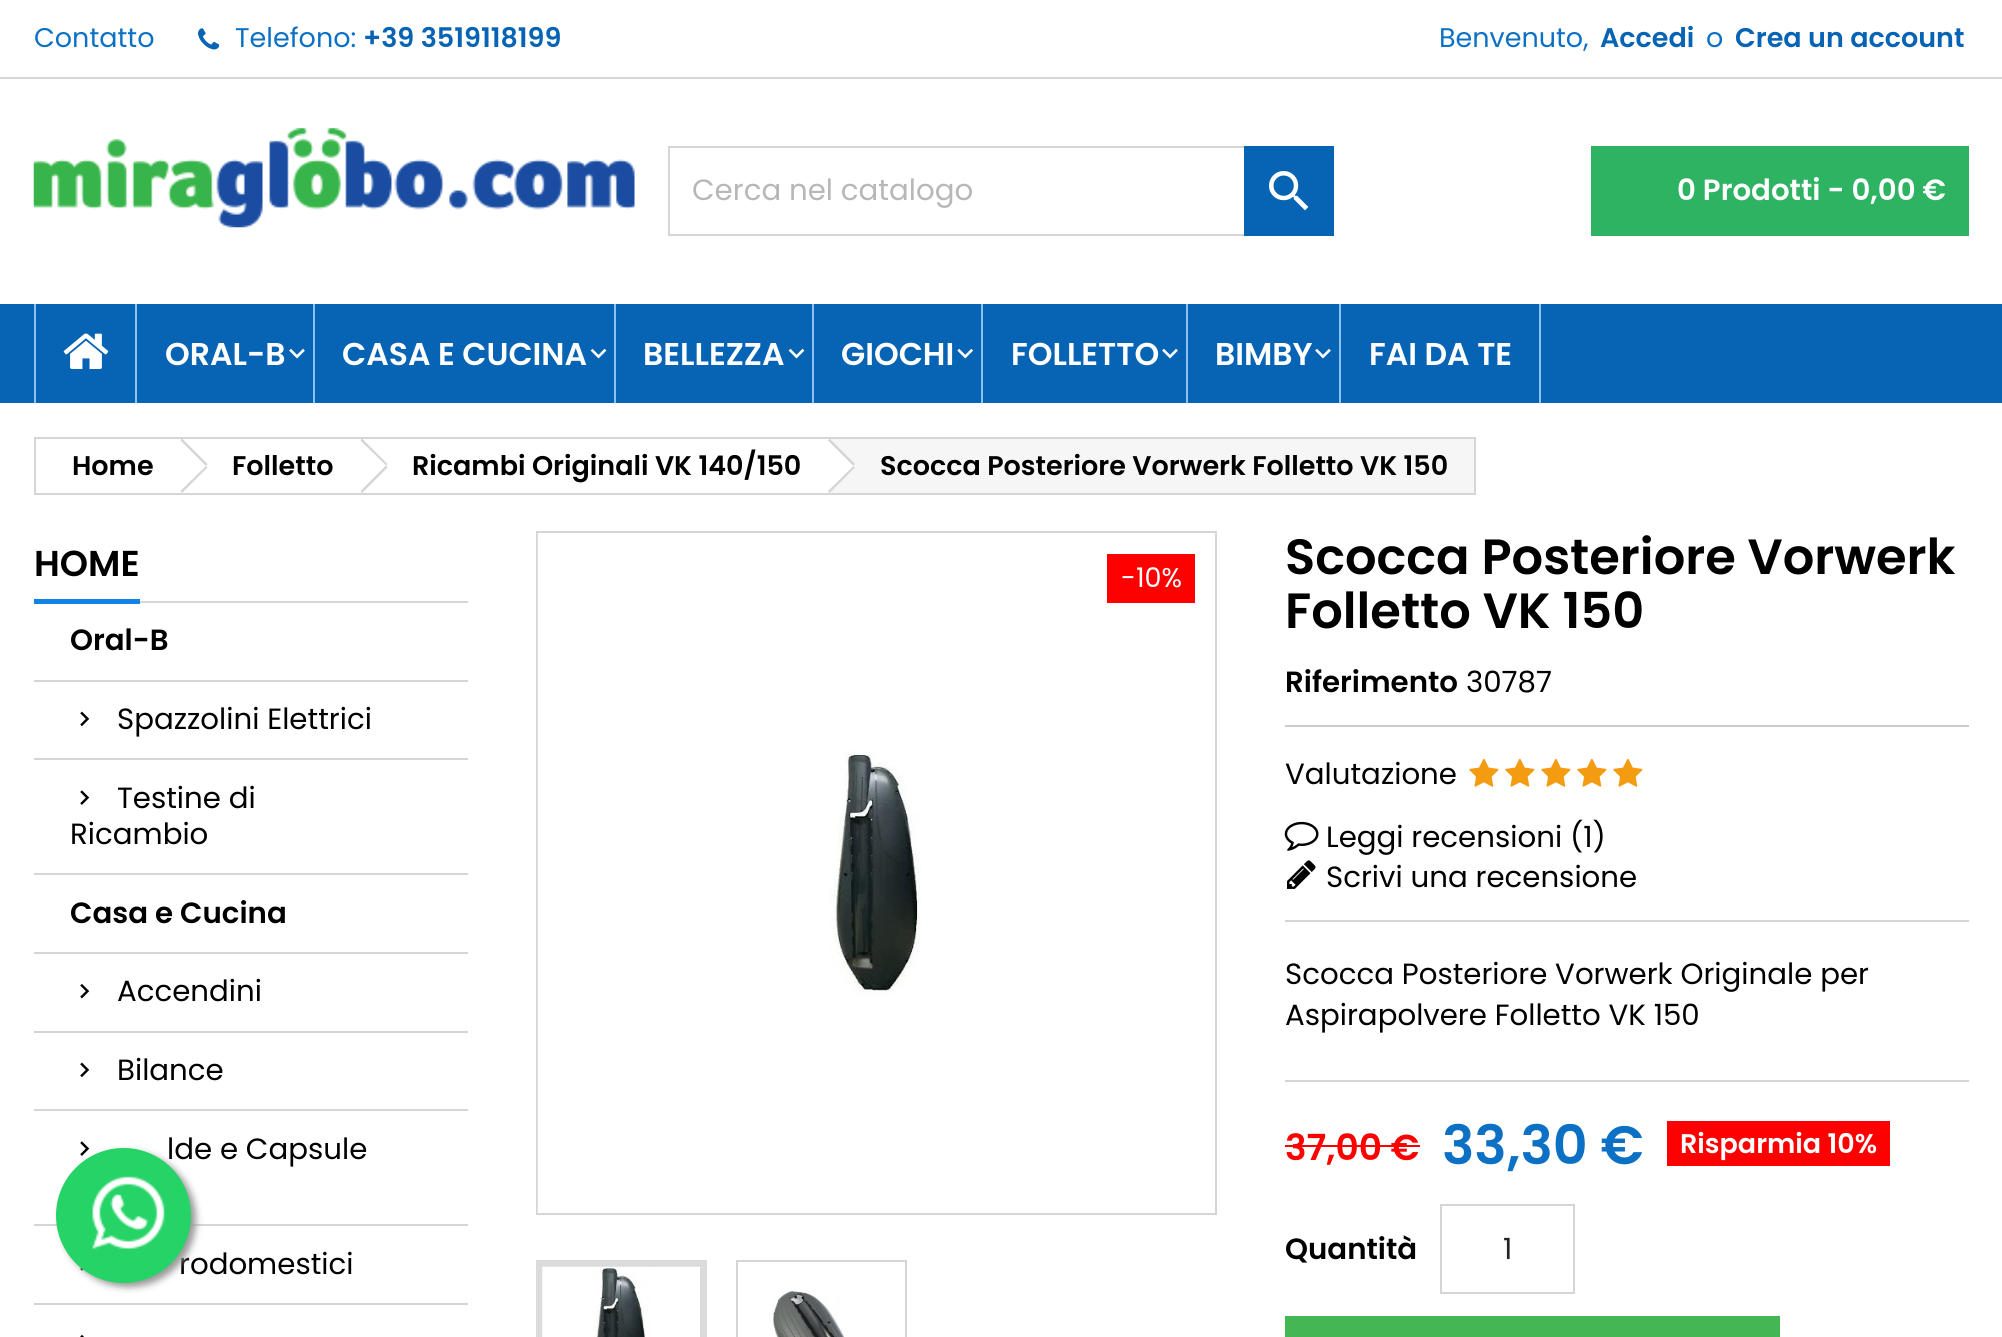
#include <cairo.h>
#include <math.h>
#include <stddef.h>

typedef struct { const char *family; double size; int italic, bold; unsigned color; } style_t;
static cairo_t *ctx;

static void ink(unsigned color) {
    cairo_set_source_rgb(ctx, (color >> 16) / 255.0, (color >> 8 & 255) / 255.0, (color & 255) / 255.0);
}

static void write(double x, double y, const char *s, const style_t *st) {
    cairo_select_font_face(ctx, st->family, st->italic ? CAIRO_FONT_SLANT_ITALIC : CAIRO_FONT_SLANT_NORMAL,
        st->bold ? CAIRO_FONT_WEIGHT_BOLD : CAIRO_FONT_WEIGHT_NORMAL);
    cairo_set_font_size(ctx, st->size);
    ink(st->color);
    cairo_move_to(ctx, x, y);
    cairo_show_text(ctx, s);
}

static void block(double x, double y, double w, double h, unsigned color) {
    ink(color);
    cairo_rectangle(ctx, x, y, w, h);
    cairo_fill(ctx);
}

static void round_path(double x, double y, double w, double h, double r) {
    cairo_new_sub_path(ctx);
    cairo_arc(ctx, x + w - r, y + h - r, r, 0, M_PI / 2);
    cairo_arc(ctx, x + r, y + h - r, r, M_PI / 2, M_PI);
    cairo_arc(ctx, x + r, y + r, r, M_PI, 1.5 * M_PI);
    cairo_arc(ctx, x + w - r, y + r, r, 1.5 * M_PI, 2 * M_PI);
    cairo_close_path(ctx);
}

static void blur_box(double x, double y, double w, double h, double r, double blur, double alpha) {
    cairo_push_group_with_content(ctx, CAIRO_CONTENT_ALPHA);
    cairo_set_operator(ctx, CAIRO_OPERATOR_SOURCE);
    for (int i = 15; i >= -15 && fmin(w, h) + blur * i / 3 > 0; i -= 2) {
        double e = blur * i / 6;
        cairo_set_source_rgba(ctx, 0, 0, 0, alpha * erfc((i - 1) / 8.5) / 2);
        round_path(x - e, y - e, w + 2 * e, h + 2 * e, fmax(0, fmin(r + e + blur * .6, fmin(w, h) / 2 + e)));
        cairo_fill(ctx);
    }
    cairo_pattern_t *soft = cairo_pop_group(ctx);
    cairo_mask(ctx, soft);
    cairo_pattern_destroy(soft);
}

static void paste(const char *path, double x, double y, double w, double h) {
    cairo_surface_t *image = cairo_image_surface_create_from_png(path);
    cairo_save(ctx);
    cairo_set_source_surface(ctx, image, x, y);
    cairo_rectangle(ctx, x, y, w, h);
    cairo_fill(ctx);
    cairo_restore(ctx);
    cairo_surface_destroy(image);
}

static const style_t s1 = {"Poppins", 27, 0, 0, 0x0c71c4};
static const style_t s2 = {"Poppins SemiBold", 27, 0, 0, 0x0763b3};
static const style_t s3 = {"Poppins", 29.25, 0, 0, 0xb7b7b7};
static const style_t s4 = {"Poppins SemiBold", 29.25, 0, 0, 0xffffff};
static const style_t s5 = {"Poppins SemiBold", 31.5, 0, 0, 0xffffff};
static const style_t s6 = {"Poppins SemiBold", 27, 0, 0, 0x000000};
static const style_t s7 = {"Poppins SemiBold", 36, 0, 0, 0x000000};
static const style_t s8 = {"Poppins SemiBold", 29.25, 0, 0, 0x000000};
static const style_t s9 = {"Poppins", 29.25, 0, 0, 0x000000};
static const style_t s10 = {"Poppins", 27, 0, 0, 0xffffff};
static const style_t s11 = {"Poppins SemiBold", 49.5, 0, 0, 0x000000};
static const style_t s12 = {"Poppins SemiBold", 36, 0, 0, 0xff0000};
static const style_t s13 = {"Poppins SemiBold", 54, 0, 0, 0x0c71c4};
static const style_t s14 = {"Poppins SemiBold", 27, 0, 0, 0xffffff};
static const style_t s15 = {"Poppins", 29.25, 0, 0, 0x232323};

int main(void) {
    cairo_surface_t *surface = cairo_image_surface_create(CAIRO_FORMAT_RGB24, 2002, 1337);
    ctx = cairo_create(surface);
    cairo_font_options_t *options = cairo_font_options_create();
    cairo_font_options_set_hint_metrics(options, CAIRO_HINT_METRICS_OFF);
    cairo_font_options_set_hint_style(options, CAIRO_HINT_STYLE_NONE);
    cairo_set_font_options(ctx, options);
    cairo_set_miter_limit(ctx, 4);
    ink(0xffffff);
    cairo_paint(ctx);
    block(0, 77, 2002, 2, 0xd6d4d4);
    write(34, 47, "Contatto", &s1);
    paste("pic1.png", 198, 28, 22, 22);
    write(235, 47, "Telefono:", &s1);
    write(363, 47, "+39 3519118199", &s2);
    write(1439, 47, "Benvenuto,", &s1);
    write(1600, 47, "Accedi", &s2);
    write(1706, 47, "o", &s1);
    write(1735, 47, "Crea un account", &s2);
    paste("pic2.png", 33, 128, 602, 100);
    cairo_rectangle(ctx, 669, 147, 664, 88);
    ink(0xd6d4d4);
    cairo_stroke(ctx);
    write(692, 200, "Cerca nel catalogo", &s3);
    block(1244, 146, 90, 90, 0x0763b3);
    paste("pic3.png", 1269, 171, 40, 40);
    block(1591, 146, 378, 90, 0x2eb363);
    write(1677, 200, "0 Prodotti - 0,00 €", &s4);
    block(0, 304, 2002, 99, 0x0763b3);
    block(34, 304, 2, 99, 0x8cc1f2);
    paste("pic4.png", 63, 333, 46, 36);
    block(135, 304, 2, 99, 0x8cc1f2);
    write(165, 365, "ORAL-B", &s5);
    paste("pic5.png", 289, 348, 16, 11);
    block(313, 304, 2, 99, 0x8cc1f2);
    write(342, 365, "CASA E CUCINA", &s5);
    paste("pic6.png", 590, 348, 17, 11);
    block(614, 304, 2, 99, 0x8cc1f2);
    write(643, 365, "BELLEZZA", &s5);
    paste("pic6.png", 788, 348, 17, 11);
    block(812, 304, 2, 99, 0x8cc1f2);
    write(841, 365, "GIOCHI", &s5);
    paste("pic7.png", 957, 348, 16, 11);
    block(981, 304, 2, 99, 0x8cc1f2);
    write(1011, 365, "FOLLETTO", &s5);
    paste("pic5.png", 1162, 348, 16, 11);
    block(1186, 304, 2, 99, 0x8cc1f2);
    write(1215, 365, "BIMBY", &s5);
    paste("pic5.png", 1315, 348, 16, 11);
    block(1539, 304, 2, 99, 0x8cc1f2);
    block(1339, 304, 2, 99, 0x8cc1f2);
    write(1369, 365, "FAI DA TE", &s5);
    cairo_rectangle(ctx, 35, 438, 1440, 56);
    ink(0xd6d4d4);
    cairo_stroke(ctx);
    write(72, 475, "Home", &s6);
    ink(0xd6d4d4);
    cairo_new_path(ctx);
    cairo_move_to(ctx, 182, 438.5);
    cairo_line_to(ctx, 207.5, 464);
    cairo_line_to(ctx, 206, 466);
    cairo_line_to(ctx, 180.5, 440.5);
    cairo_close_path(ctx);
    cairo_move_to(ctx, 206, 466);
    cairo_line_to(ctx, 207.5, 467.5);
    cairo_line_to(ctx, 182, 493);
    cairo_line_to(ctx, 180.5, 491);
    cairo_close_path(ctx);
    cairo_fill(ctx);
    write(232, 475, "Folletto", &s6);
    ink(0xd6d4d4);
    cairo_new_path(ctx);
    cairo_move_to(ctx, 362, 438.5);
    cairo_line_to(ctx, 387.5, 464);
    cairo_line_to(ctx, 386, 465.5);
    cairo_line_to(ctx, 360.5, 440.5);
    cairo_close_path(ctx);
    cairo_fill(ctx);
    cairo_new_path(ctx);
    cairo_move_to(ctx, 386, 465.5);
    cairo_line_to(ctx, 387.5, 467.5);
    cairo_line_to(ctx, 362, 493);
    cairo_line_to(ctx, 360.5, 491);
    cairo_close_path(ctx);
    cairo_fill(ctx);
    write(412, 475, "Ricambi Originali VK 140/150", &s6);
    block(830, 439, 644, 54, 0xf6f6f6);
    ink(0xffffff);
    cairo_new_path(ctx);
    cairo_move_to(ctx, 831, 440);
    cairo_line_to(ctx, 854, 463);
    cairo_curve_to(ctx, 855, 464, 855, 467, 854, 469);
    cairo_line_to(ctx, 831, 491);
    cairo_curve_to(ctx, 829, 493, 827, 493, 825, 491);
    cairo_line_to(ctx, 803, 469);
    cairo_curve_to(ctx, 801, 467, 801, 464, 803, 463);
    cairo_line_to(ctx, 825, 440);
    cairo_curve_to(ctx, 827, 439, 829, 439, 831, 440);
    cairo_close_path(ctx);
    cairo_fill(ctx);
    ink(0xd6d4d4);
    cairo_new_path(ctx);
    cairo_move_to(ctx, 829.5, 438.5);
    cairo_line_to(ctx, 855, 464);
    cairo_line_to(ctx, 853.5, 466);
    cairo_line_to(ctx, 828, 440.5);
    cairo_close_path(ctx);
    cairo_move_to(ctx, 853.5, 466);
    cairo_line_to(ctx, 855, 467.5);
    cairo_line_to(ctx, 829.5, 493);
    cairo_line_to(ctx, 828, 491);
    cairo_close_path(ctx);
    cairo_fill(ctx);
    write(880, 475, "Scocca Posteriore Vorwerk Folletto VK 150", &s6);
    block(140, 601, 328, 2, 0xd6d4d4);
    block(34, 599, 106, 5, 0x1283e6);
    write(34, 576, "HOME", &s7);
    block(34, 680, 434, 2, 0xd6d4d4);
    write(70, 650, "Oral-B", &s8);
    block(34, 758, 434, 2, 0xd6d4d4);
    paste("pic8.png", 80, 711, 10, 16);
    write(117, 729, "Spazzolini Elettrici", &s9);
    block(34, 873, 434, 2, 0xd6d4d4);
    paste("pic9.png", 80, 790, 10, 15);
    write(117, 808, "Testine di", &s9);
    write(70, 844, "Ricambio", &s9);
    block(34, 952, 434, 2, 0xd6d4d4);
    write(70, 923, "Casa e Cucina", &s8);
    block(34, 1031, 434, 2, 0xd6d4d4);
    paste("pic10.png", 80, 983, 10, 16);
    write(117, 1001, "Accendini", &s9);
    block(34, 1109, 434, 2, 0xd6d4d4);
    paste("pic8.png", 80, 1062, 10, 16);
    write(117, 1080, "Bilance", &s9);
    block(34, 1224, 434, 2, 0xd6d4d4);
    paste("pic9.png", 80, 1141, 10, 15);
    write(167, 1159, "lde e Capsule", &s9);
    block(34, 1303, 434, 2, 0xd6d4d4);
    paste("pic11.png", 80, 1268, 4, 3);
    write(179, 1274, "rodomestici", &s9);
    paste("pic12.png", 80, 1334, 4, 3);
    cairo_rectangle(ctx, 537, 532, 679, 682);
    ink(0xd6d4d4);
    cairo_stroke(ctx);
    paste("pic13.png", 537, 533, 384, 680);
    cairo_rectangle(ctx, 539.5, 1263.5, 164, 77);
    ink(0xdbdbdb);
    cairo_set_line_width(ctx, 7);
    cairo_stroke(ctx);
    cairo_rectangle(ctx, 737, 1261, 169, 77);
    ink(0xd6d4d4);
    cairo_set_line_width(ctx, 2);
    cairo_stroke(ctx);
    paste("pic14.png", 542, 1266, 158, 71);
    paste("pic15.png", 772, 1291, 73, 46);
    block(1107, 554, 88, 49, 0xff0000);
    write(1121, 587, "-10%", &s10);
    write(1285, 574, "Scocca Posteriore Vorwerk", &s11);
    write(1285, 628, "Folletto VK 150", &s11);
    write(1285, 692, "Riferimento", &s8);
    write(1466, 692, "30787", &s9);
    block(1285, 725, 684, 2, 0xcccccc);
    write(1285, 784, "Valutazione", &s9);
    paste("pic16.png", 1469, 758, 30, 29);
    paste("pic16.png", 1505, 758, 30, 29);
    paste("pic16.png", 1541, 758, 30, 29);
    paste("pic16.png", 1577, 758, 30, 29);
    paste("pic16.png", 1613, 758, 30, 29);
    paste("pic17.png", 1284, 821, 35, 30);
    write(1326, 847, "Leggi recensioni (1)", &s9);
    paste("pic18.png", 1287, 860, 29, 29);
    write(1326, 887, "Scrivi una recensione", &s9);
    block(1285, 920, 684, 2, 0xd6d4d4);
    write(1285, 984, "Scocca Posteriore Vorwerk Originale per", &s9);
    write(1285, 1025, "Aspirapolvere Folletto VK 150", &s9);
    block(1285, 1080, 684, 2, 0xd6d4d4);
    write(1285, 1160, "37,00 €", &s12);
    block(1285, 1145, 135, 2, 0xff0000);
    write(1442, 1164, "33,30 €", &s13);
    block(1667, 1121, 223, 45, 0xff0000);
    write(1680, 1153, "Risparmia 10%", &s14);
    write(1285, 1259, "Quantità", &s8);
    cairo_rectangle(ctx, 1441, 1205, 133, 88);
    ink(0xd6d4d4);
    cairo_stroke(ctx);
    write(1503, 1259, "1", &s15);
    block(1285, 1316, 495, 21, 0x43b754);
    ink(0x999999);
    blur_box(61, 1152, 135, 135, 67.5, 3.5, 1);
    ink(0x25d366);
    cairo_arc(ctx, 123.5, 1215.5, 67.5, 0, 2 * M_PI);
    cairo_fill(ctx);
    paste("pic19.png", 92, 1176, 73, 73);
    cairo_surface_write_to_png(surface, "screenshot.png");
    cairo_font_options_destroy(options);
    cairo_destroy(ctx);
    cairo_surface_destroy(surface);
    return 0;
}
